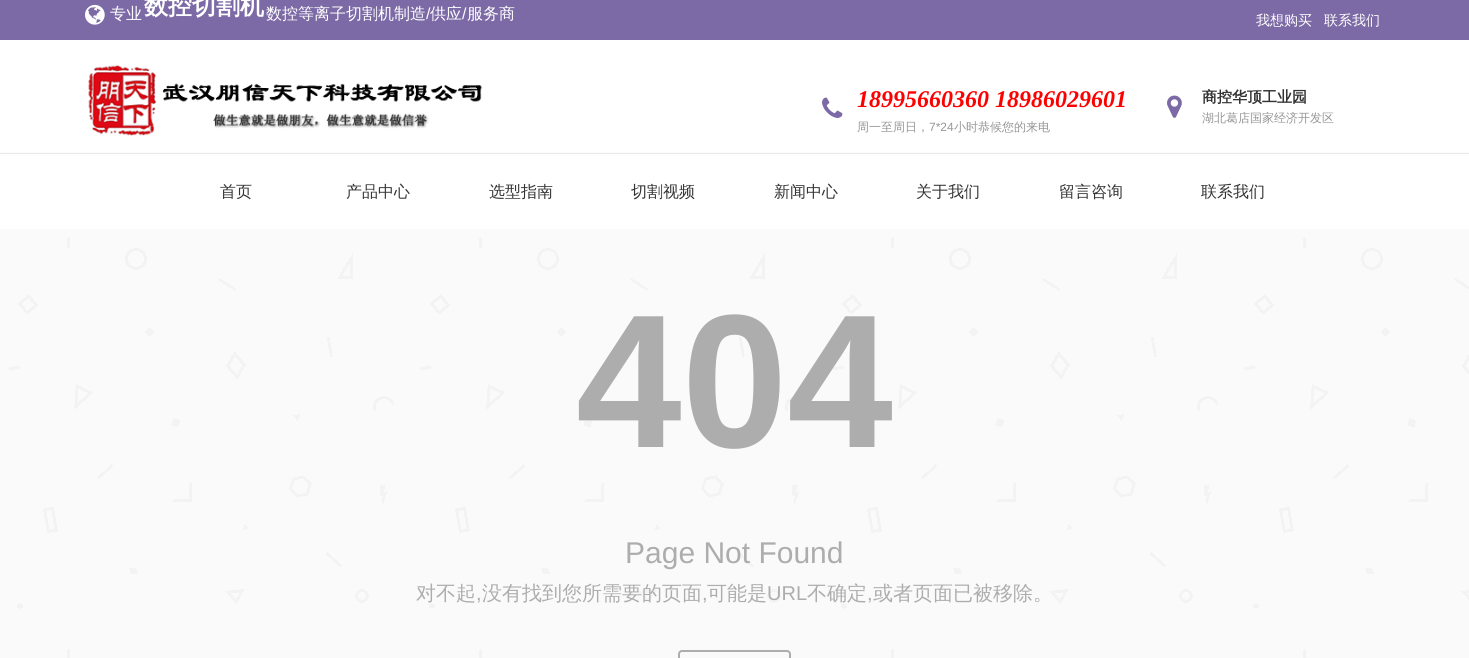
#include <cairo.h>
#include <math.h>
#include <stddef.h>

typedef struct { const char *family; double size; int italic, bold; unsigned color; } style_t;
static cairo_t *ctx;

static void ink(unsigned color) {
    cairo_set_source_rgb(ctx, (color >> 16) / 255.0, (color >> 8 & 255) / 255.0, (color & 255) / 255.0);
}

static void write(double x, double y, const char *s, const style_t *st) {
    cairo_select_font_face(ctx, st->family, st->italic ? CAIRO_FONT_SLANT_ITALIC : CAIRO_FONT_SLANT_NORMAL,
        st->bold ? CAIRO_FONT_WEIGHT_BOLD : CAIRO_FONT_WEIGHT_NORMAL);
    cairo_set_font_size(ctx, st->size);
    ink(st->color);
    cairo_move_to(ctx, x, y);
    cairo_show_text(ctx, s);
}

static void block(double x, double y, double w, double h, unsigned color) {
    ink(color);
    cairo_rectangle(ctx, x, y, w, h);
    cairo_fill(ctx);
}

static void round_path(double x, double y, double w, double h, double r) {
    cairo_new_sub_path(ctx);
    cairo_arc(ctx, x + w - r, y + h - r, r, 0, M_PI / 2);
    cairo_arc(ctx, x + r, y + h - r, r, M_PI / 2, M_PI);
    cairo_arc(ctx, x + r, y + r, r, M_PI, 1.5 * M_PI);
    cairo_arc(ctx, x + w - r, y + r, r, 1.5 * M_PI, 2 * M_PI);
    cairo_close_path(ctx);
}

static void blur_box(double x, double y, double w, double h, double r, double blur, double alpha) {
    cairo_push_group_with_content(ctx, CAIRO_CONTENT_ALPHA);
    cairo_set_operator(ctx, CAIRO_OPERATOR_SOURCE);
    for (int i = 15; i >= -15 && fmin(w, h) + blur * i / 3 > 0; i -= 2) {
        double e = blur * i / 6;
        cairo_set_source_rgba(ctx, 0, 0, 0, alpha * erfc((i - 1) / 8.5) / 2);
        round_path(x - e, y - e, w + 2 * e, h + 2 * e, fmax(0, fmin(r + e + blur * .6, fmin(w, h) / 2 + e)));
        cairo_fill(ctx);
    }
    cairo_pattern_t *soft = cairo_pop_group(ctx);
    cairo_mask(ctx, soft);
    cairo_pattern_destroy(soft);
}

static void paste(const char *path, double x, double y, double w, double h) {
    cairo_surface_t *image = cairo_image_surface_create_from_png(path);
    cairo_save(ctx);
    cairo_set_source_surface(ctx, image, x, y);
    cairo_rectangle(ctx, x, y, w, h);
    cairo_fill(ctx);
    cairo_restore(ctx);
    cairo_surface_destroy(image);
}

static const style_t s1 = {"WenQuanYi Zen Hei Medium", 16, 0, 0, 0xffffff};
static const style_t s2 = {"WenQuanYi Zen Hei", 24, 0, 1, 0xffffff};
static const style_t s3 = {"Liberation Sans", 16, 0, 0, 0xffffff};
static const style_t s4 = {"WenQuanYi Zen Hei Medium", 14, 0, 0, 0xffffff};
static const style_t s5 = {"Liberation Serif", 24, 1, 1, 0xff0000};
static const style_t s6 = {"WenQuanYi Zen Hei Medium", 12, 0, 0, 0x969696};
static const style_t s7 = {"Liberation Sans", 12, 0, 0, 0x969696};
static const style_t s8 = {"WenQuanYi Zen Hei", 15, 0, 1, 0x333333};
static const style_t s9 = {"WenQuanYi Zen Hei Medium", 16, 0, 0, 0x333333};
static const style_t s10 = {"Liberation Sans", 190, 0, 1, 0xadadad};
static const style_t s11 = {"Liberation Sans", 30, 0, 0, 0xadadad};
static const style_t s12 = {"WenQuanYi Zen Hei Medium", 20, 0, 0, 0xadadad};
static const style_t s13 = {"Liberation Sans", 20, 0, 0, 0xadadad};

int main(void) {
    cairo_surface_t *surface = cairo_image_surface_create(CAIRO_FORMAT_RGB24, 1469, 658);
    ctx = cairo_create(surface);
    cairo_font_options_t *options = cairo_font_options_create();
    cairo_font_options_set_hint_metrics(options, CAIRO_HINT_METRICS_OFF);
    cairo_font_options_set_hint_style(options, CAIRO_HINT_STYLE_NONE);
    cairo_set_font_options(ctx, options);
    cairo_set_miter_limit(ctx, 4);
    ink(0xffffff);
    cairo_paint(ctx);
    block(0, 0, 1469, 40, 0x7c6aa6);
    paste("pic1.png", 85, 4, 20, 21);
    write(110, 19, "专业", &s1);
    write(144, 14, "数控切割机", &s2);
    write(266, 19, "数控等离子切割机制造", &s1);
    write(426, 19, "/", &s3);
    write(430, 19, "供应", &s1);
    write(462, 19, "/", &s3);
    write(467, 19, "服务商", &s1);
    write(1256, 25, "我想购买", &s4);
    write(1324, 25, "联系我们", &s4);
    paste("pic2.png", 88, 65, 394, 71);
    paste("pic3.png", 822, 97, 21, 21);
    write(857, 107, "18995660360 18986029601", &s5);
    write(857, 131, "周一至周日，", &s6);
    write(929, 131, "7*24", &s7);
    write(954, 131, "小时恭候您的来电", &s6);
    paste("pic4.png", 1167, 95, 15, 23);
    write(1202, 102, "商控华顶工业园", &s8);
    write(1202, 122, "湖北葛店国家经济开发区", &s6);
    cairo_save(ctx);
    cairo_rectangle(ctx, 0, 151, 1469, 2);
    cairo_clip(ctx);
    ink(0xe9e9e9);
    blur_box(0, 154, 1469, 76, 0, 1.5, 1);
    cairo_restore(ctx);
    block(0, 153, 1469, 1, 0xe9e9e9);
    write(220, 197, "首页", &s9);
    write(346, 197, "产品中心", &s9);
    write(489, 197, "选型指南", &s9);
    write(631, 197, "切割视频", &s9);
    write(774, 197, "新闻中心", &s9);
    write(916, 197, "关于我们", &s9);
    write(1059, 197, "留言咨询", &s9);
    write(1201, 197, "联系我们", &s9);
    paste("pic5.png", 0, 229, 1469, 429);
    write(576, 447, "404", &s10);
    write(625, 563, "Page Not Found", &s11);
    write(416, 600, "对不起", &s12);
    write(476, 600, ",", &s13);
    write(482, 600, "没有找到您所需要的页面", &s12);
    write(702, 600, ",", &s13);
    write(707, 600, "可能是", &s12);
    write(767, 600, "URL", &s13);
    write(807, 600, "不确定", &s12);
    write(867, 600, ",", &s13);
    write(873, 600, "或者页面已被移除。", &s12);
    round_path(679, 651, 111, 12, 3);
    cairo_stroke(ctx);
    cairo_surface_write_to_png(surface, "screenshot.png");
    cairo_font_options_destroy(options);
    cairo_destroy(ctx);
    cairo_surface_destroy(surface);
    return 0;
}
